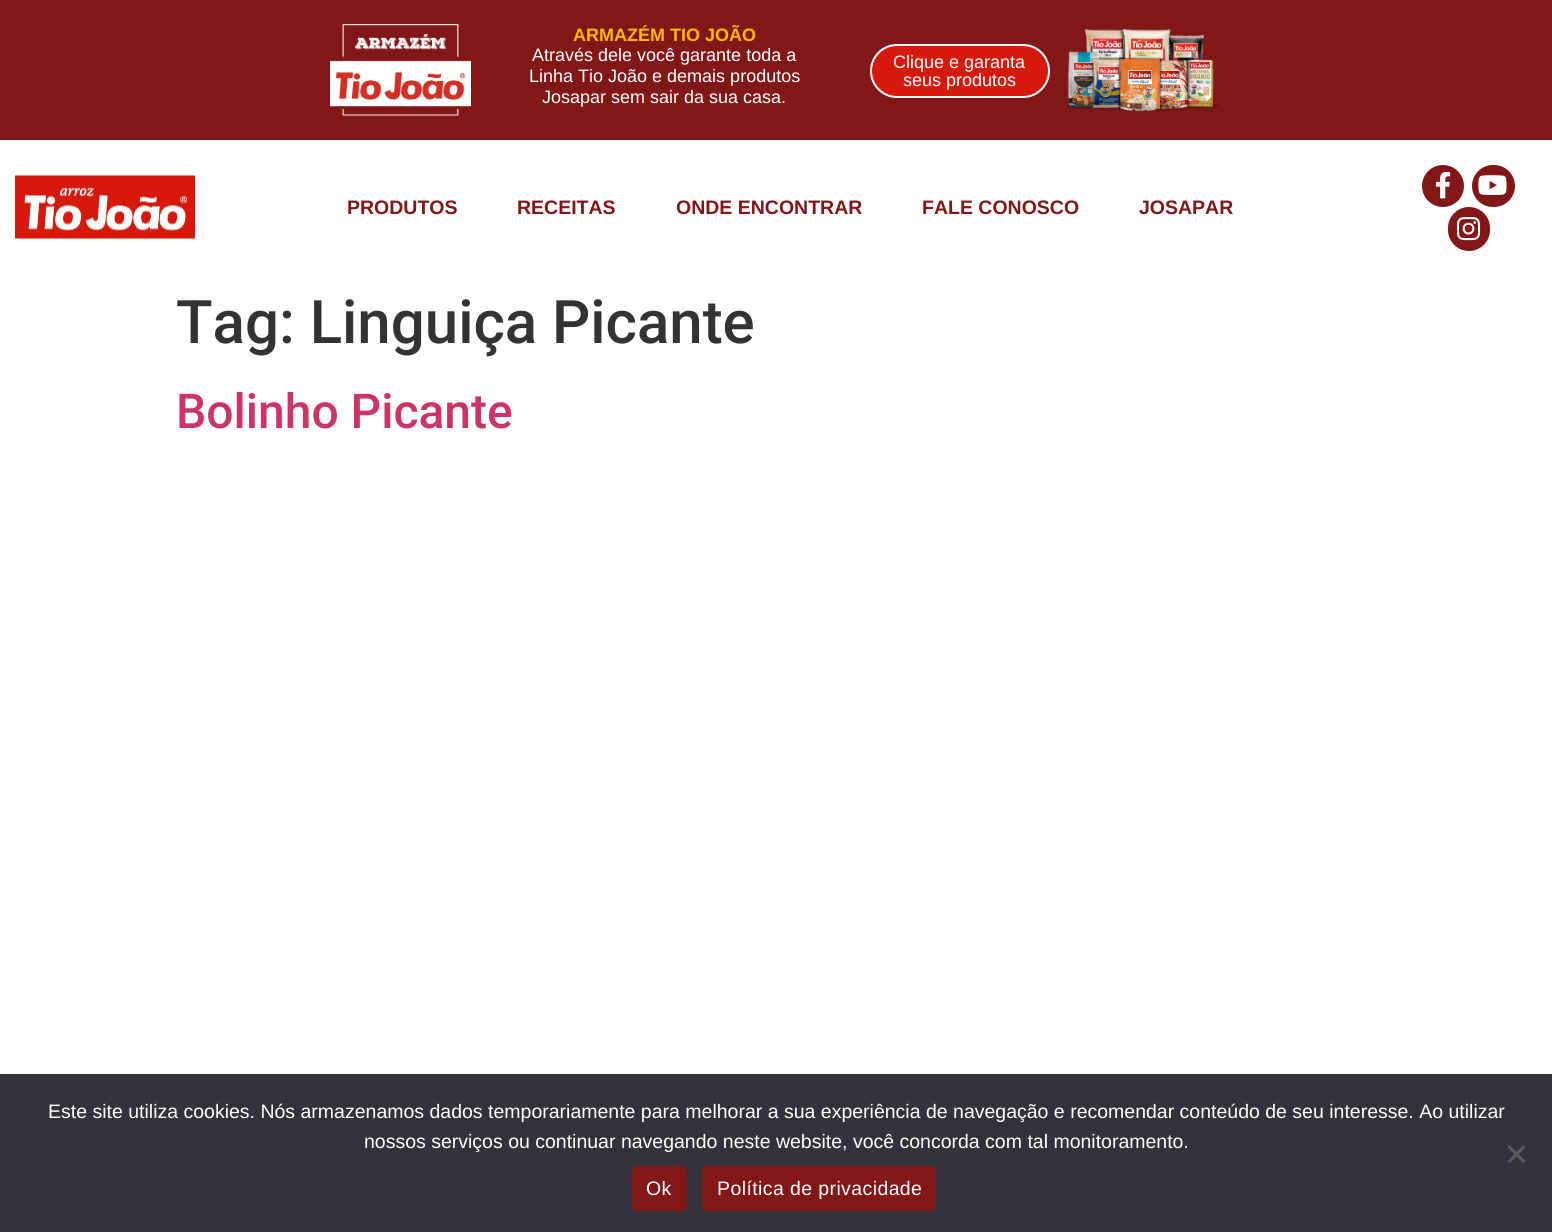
#include <cairo.h>
#include <math.h>
#include <stddef.h>

typedef struct { const char *family; double size; int italic, bold; unsigned color; } style_t;
static cairo_t *ctx;

static void ink(unsigned color) {
    cairo_set_source_rgb(ctx, (color >> 16) / 255.0, (color >> 8 & 255) / 255.0, (color & 255) / 255.0);
}

static void write(double x, double y, const char *s, const style_t *st) {
    cairo_select_font_face(ctx, st->family, st->italic ? CAIRO_FONT_SLANT_ITALIC : CAIRO_FONT_SLANT_NORMAL,
        st->bold ? CAIRO_FONT_WEIGHT_BOLD : CAIRO_FONT_WEIGHT_NORMAL);
    cairo_set_font_size(ctx, st->size);
    ink(st->color);
    cairo_move_to(ctx, x, y);
    cairo_show_text(ctx, s);
}

static void write_spaced(double x, double y, const char *s, double letter, double word) {
    cairo_move_to(ctx, x, y);
    while (*s) {
        char ch[5] = {0};
        int n = 0;
        do ch[n++] = *s++; while ((*s & 0xC0) == 0x80);
        cairo_show_text(ctx, ch);
        cairo_rel_move_to(ctx, letter + word * (*ch == ' '), 0);
    }
}

static void block(double x, double y, double w, double h, unsigned color) {
    ink(color);
    cairo_rectangle(ctx, x, y, w, h);
    cairo_fill(ctx);
}

static void round_path(double x, double y, double w, double h, double r) {
    cairo_new_sub_path(ctx);
    cairo_arc(ctx, x + w - r, y + h - r, r, 0, M_PI / 2);
    cairo_arc(ctx, x + r, y + h - r, r, M_PI / 2, M_PI);
    cairo_arc(ctx, x + r, y + r, r, M_PI, 1.5 * M_PI);
    cairo_arc(ctx, x + w - r, y + r, r, 1.5 * M_PI, 2 * M_PI);
    cairo_close_path(ctx);
}

static void paste(const char *path, double x, double y, double w, double h) {
    cairo_surface_t *image = cairo_image_surface_create_from_png(path);
    cairo_save(ctx);
    cairo_set_source_surface(ctx, image, x, y);
    cairo_rectangle(ctx, x, y, w, h);
    cairo_fill(ctx);
    cairo_restore(ctx);
    cairo_surface_destroy(image);
}

static const style_t s1 = {"Liberation Sans", 18, 0, 1, 0xffb702};
static const style_t s2 = {"Liberation Sans", 18, 0, 0, 0xffffff};
static const style_t s3 = {"Liberation Sans", 19.5, 0, 1, 0x821718};
static const style_t s4 = {"Roboto Medium", 60, 0, 0, 0x333333};
static const style_t s5 = {"Roboto Medium", 48, 0, 0, 0xcc3366};
static const style_t s6 = {"Liberation Sans", 19.5, 0, 0, 0xffffff};

int main(void) {
    cairo_surface_t *surface = cairo_image_surface_create(CAIRO_FORMAT_RGB24, 1552, 1232);
    ctx = cairo_create(surface);
    cairo_font_options_t *options = cairo_font_options_create();
    cairo_font_options_set_hint_metrics(options, CAIRO_HINT_METRICS_OFF);
    cairo_font_options_set_hint_style(options, CAIRO_HINT_STYLE_NONE);
    cairo_set_font_options(ctx, options);
    cairo_set_miter_limit(ctx, 4);
    ink(0xffffff);
    cairo_paint(ctx);
    block(0, 0, 1552, 140, 0x821718);
    paste("pic1.png", 330, 24, 141, 92);
    write(573, 41, "ARMAZÉM TIO JOÃO", &s1);
    write(532, 61, "Através dele você garante toda a", &s2);
    write(529, 82, "Linha Tio João e demais produtos", &s2);
    write(542, 103, "Josapar sem sair da sua casa.", &s2);
    ink(0xd6190d);
    round_path(871, 45, 178, 52, 26);
    cairo_fill_preserve(ctx);
    ink(0xffffff);
    cairo_stroke(ctx);
    write(893, 68, "Clique e garanta", &s2);
    write(903, 86, "seus produtos", &s2);
    paste("pic2.png", 1066, 29, 154, 83);
    paste("pic3.png", 15, 175, 180, 64);
    write(347, 214, "PRODUTOS", &s3);
    write(517, 214, "RECEITAS", &s3);
    write(676, 214, "ONDE ENCONTRAR", &s3);
    write(922, 214, "FALE CONOSCO", &s3);
    write(1139, 214, "JOSAPAR", &s3);
    cairo_new_path(ctx);
    cairo_arc(ctx, 1443, 186, 21, 0, 2 * M_PI);
    cairo_fill(ctx);
    paste("pic4.png", 1435, 171, 16, 28);
    round_path(1472, 165, 43, 42, 21);
    cairo_fill(ctx);
    paste("pic5.png", 1478, 175, 29, 20);
    round_path(1448, 207, 42, 44, 21);
    cairo_fill(ctx);
    paste("pic6.png", 1456, 217, 25, 24);
    write(176, 343, "Tag: Linguiça Picante", &s4);
    write(176, 428, "Bolinho Picante", &s5);
    block(0, 1074, 1552, 158, 0x32323a);
    write(48, 1118, "Este site utiliza cookies. Nós armazenamos dados temporariamente para melhorar a sua experiência de navegação e recomendar conteúdo de seu interesse. Ao utilizar", &s6);
    write(364, 1148, "nossos serviços ou continuar navegando neste website, você concorda com tal monitoramento.", &s6);
    ink(0x59595d);
    cairo_new_path(ctx);
    cairo_move_to(ctx, 1523.5, 1145);
    cairo_line_to(ctx, 1525.5, 1147.5);
    cairo_line_to(ctx, 1509.5, 1163.5);
    cairo_line_to(ctx, 1507.5, 1161);
    cairo_close_path(ctx);
    cairo_fill(ctx);
    cairo_new_path(ctx);
    cairo_move_to(ctx, 1507.5, 1147.5);
    cairo_line_to(ctx, 1509.5, 1145);
    cairo_line_to(ctx, 1525.5, 1161);
    cairo_line_to(ctx, 1523.5, 1163.5);
    cairo_close_path(ctx);
    cairo_fill(ctx);
    ink(0x821718);
    round_path(632, 1166, 55, 45, 5);
    cairo_fill(ctx);
    ink(0xffffff);
    write_spaced(646, 1195, "Ok", 0.4, 0);
    ink(0x821718);
    round_path(702, 1166, 234, 45, 5);
    cairo_fill(ctx);
    ink(0xffffff);
    write_spaced(717, 1195, "Política de privacidade", 0.4, 0);
    cairo_surface_write_to_png(surface, "screenshot.png");
    cairo_font_options_destroy(options);
    cairo_destroy(ctx);
    cairo_surface_destroy(surface);
    return 0;
}
